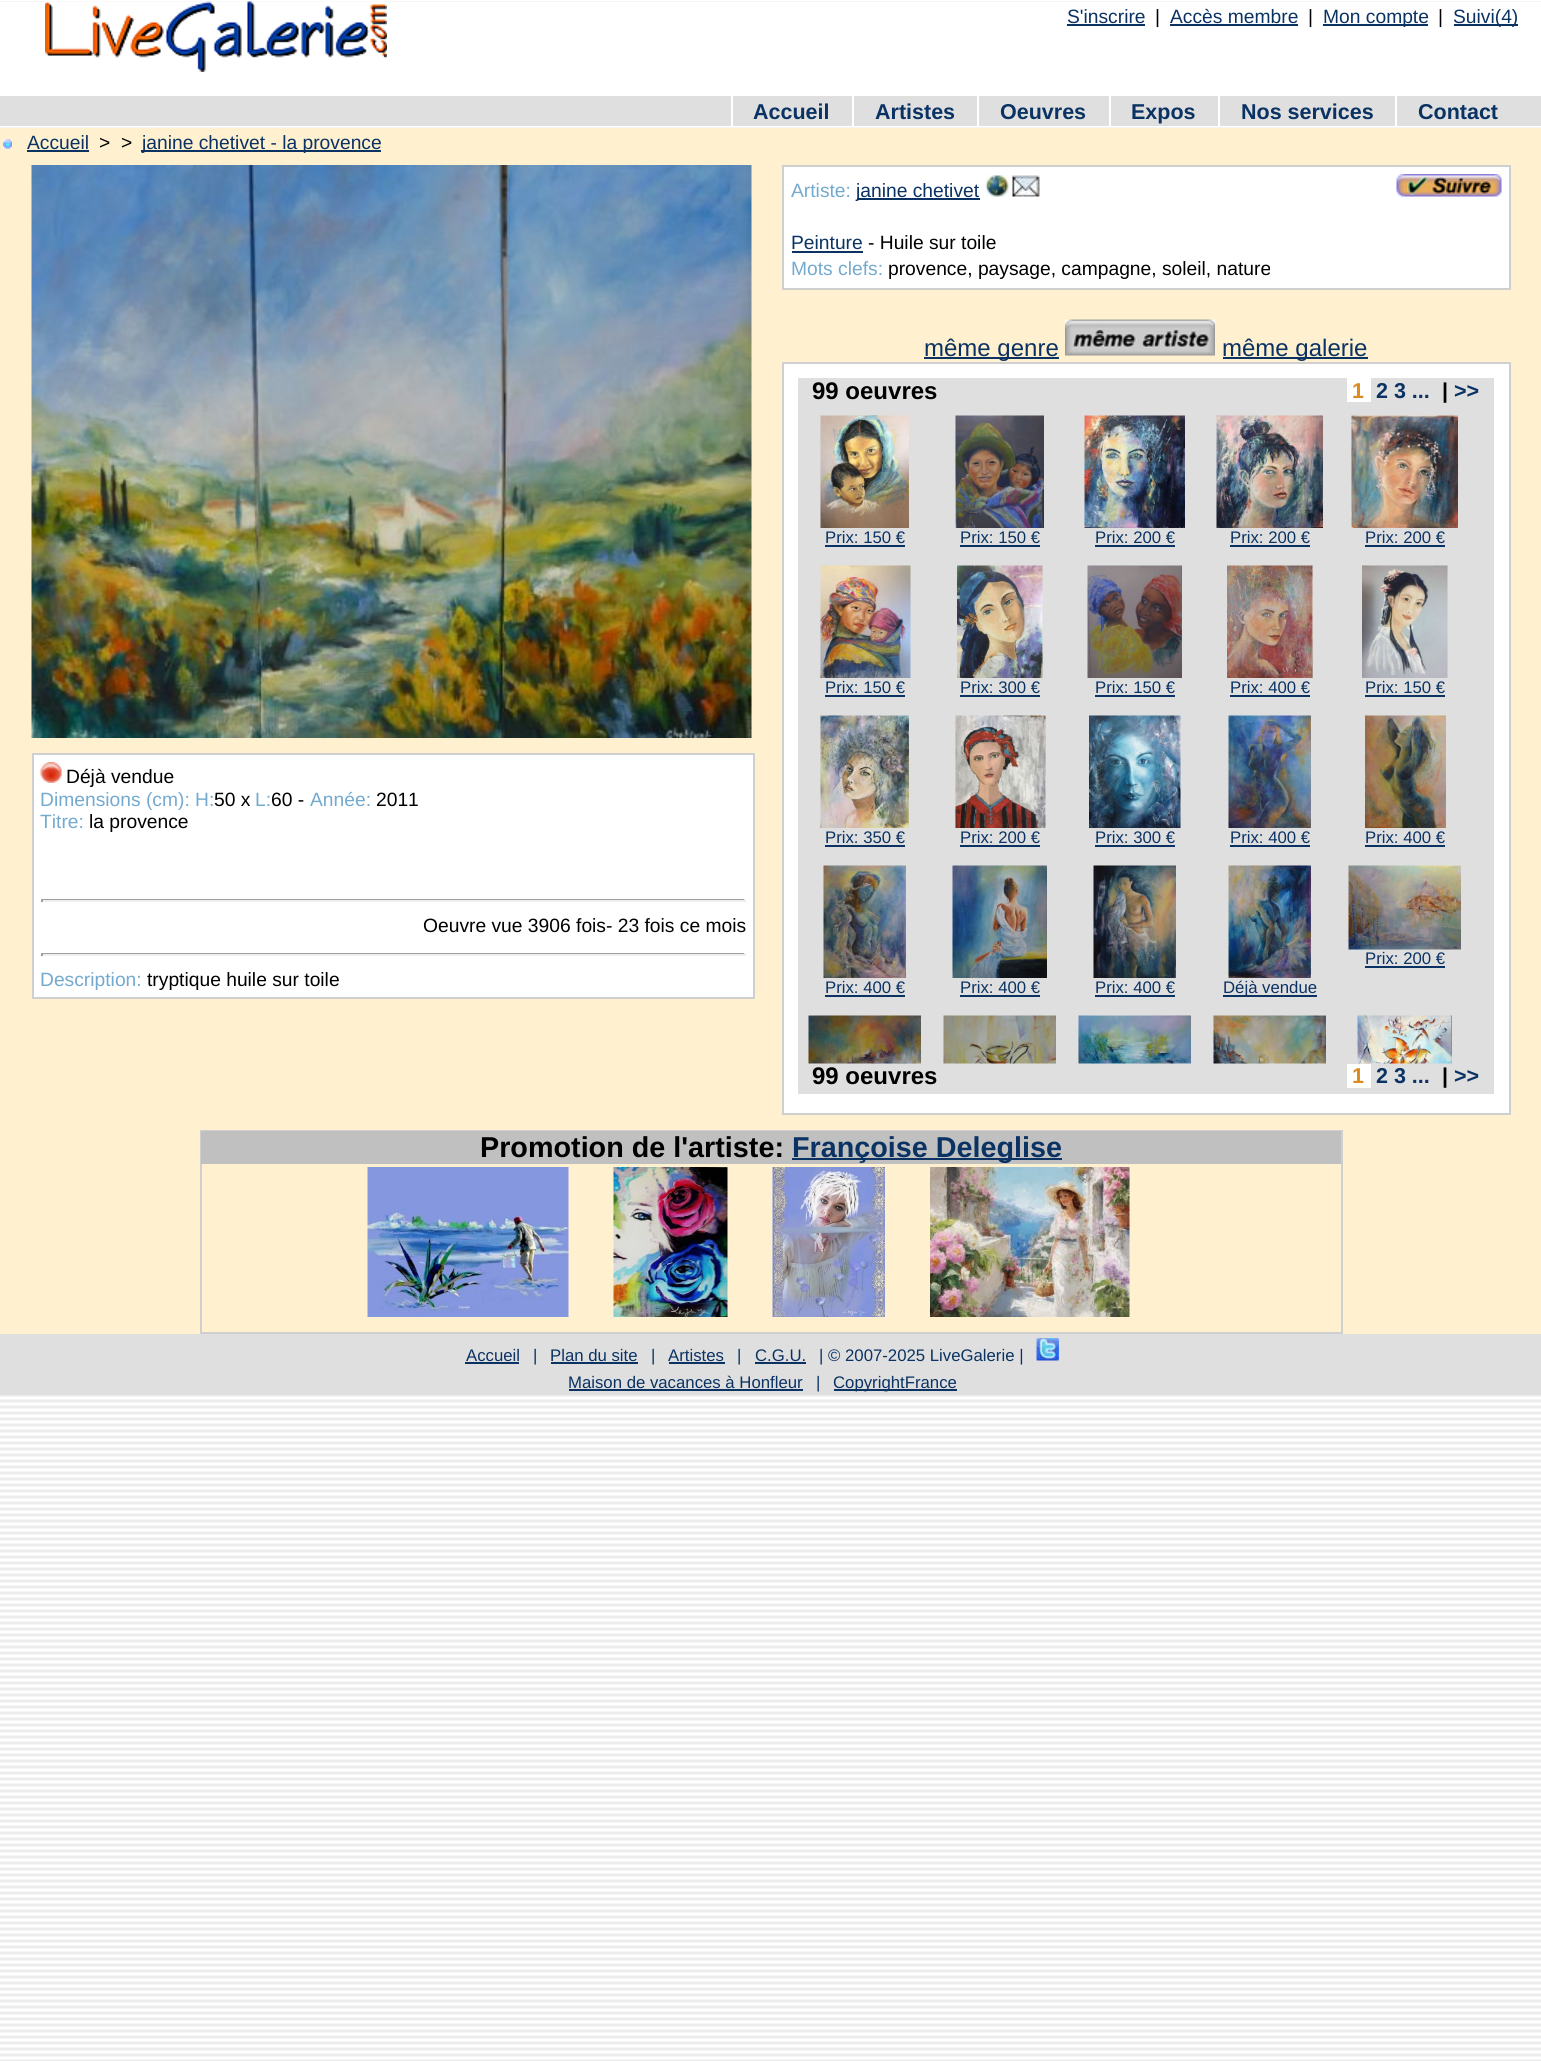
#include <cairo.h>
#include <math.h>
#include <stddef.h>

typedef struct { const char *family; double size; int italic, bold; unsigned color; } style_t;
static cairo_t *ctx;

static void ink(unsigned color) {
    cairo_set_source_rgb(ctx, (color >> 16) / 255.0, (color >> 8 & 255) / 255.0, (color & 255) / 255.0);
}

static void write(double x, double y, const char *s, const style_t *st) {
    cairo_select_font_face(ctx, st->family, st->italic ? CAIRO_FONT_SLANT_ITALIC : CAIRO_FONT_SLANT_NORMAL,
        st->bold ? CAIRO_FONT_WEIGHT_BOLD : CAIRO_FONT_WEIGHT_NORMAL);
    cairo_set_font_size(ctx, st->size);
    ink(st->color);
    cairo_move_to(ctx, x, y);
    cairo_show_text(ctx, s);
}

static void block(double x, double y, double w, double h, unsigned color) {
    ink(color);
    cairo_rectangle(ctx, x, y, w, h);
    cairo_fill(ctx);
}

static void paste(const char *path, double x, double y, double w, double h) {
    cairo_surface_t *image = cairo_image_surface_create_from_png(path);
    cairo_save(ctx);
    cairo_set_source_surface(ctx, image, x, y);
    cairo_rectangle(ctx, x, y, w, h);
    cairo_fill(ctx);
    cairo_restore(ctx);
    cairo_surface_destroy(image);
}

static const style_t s1 = {"Liberation Sans", 19.25, 0, 0, 0x0a3263};
static const style_t s2 = {"Liberation Sans", 19.25, 0, 0, 0x000000};
static const style_t s3 = {"Liberation Sans", 21.5, 0, 1, 0x0a3263};
static const style_t s4 = {"Liberation Sans", 19.25, 0, 0, 0x74aacf};
static const style_t s5 = {"Liberation Sans", 24, 0, 0, 0x0a3263};
static const style_t s6 = {"Liberation Sans", 24, 0, 1, 0x000000};
static const style_t s7 = {"Liberation Sans", 21.5, 0, 1, 0xdd8b1f};
static const style_t s8 = {"Liberation Sans", 21.5, 0, 1, 0x000000};
static const style_t s9 = {"Liberation Sans", 16.75, 0, 0, 0x0a3263};
static const style_t s10 = {"Liberation Sans", 28.75, 0, 1, 0x000000};
static const style_t s11 = {"Liberation Sans", 28.75, 0, 1, 0x0a3263};

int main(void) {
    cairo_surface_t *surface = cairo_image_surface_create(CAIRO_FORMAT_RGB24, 1541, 2061);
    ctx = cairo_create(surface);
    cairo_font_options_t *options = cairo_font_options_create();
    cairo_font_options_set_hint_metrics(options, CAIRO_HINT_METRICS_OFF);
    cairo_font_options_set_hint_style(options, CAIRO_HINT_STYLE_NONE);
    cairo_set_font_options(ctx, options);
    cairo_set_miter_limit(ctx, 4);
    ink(0xffffff);
    cairo_paint(ctx);
    paste("pic1.png", 0, 1, 1541, 2060);
    block(0, 2, 1541, 93, 0xffffff);
    paste("pic2.png", 45, 1, 342, 71);
    write(1067, 23, "S'inscrire", &s1);
    block(1067, 24, 78, 2, 0x0a3263);
    write(1155, 23, "|", &s2);
    write(1170, 23, "Accès membre", &s1);
    block(1170, 24, 128, 2, 0x0a3263);
    write(1308, 23, "|", &s2);
    block(1323, 24, 105, 2, 0x0a3263);
    write(1323, 23, "Mon compte", &s1);
    write(1438, 23, "|", &s2);
    block(1454, 24, 64, 2, 0x0a3263);
    write(1453, 23, "Suivi(4)", &s1);
    block(0, 96, 1541, 30, 0xdfdfdf);
    write(753, 119, "Accueil", &s3);
    block(731, 96, 2, 30, 0xffffff);
    write(875, 119, "Artistes", &s3);
    block(852, 96, 2, 30, 0xffffff);
    write(1000, 119, "Oeuvres", &s3);
    block(977, 96, 2, 30, 0xffffff);
    write(1131, 119, "Expos", &s3);
    block(1109, 96, 2, 30, 0xffffff);
    write(1241, 119, "Nos services", &s3);
    block(1218, 96, 2, 30, 0xffffff);
    write(1418, 119, "Contact", &s3);
    block(1395, 96, 2, 30, 0xffffff);
    block(0, 128, 1541, 1206, 0xfff0cf);
    paste("pic3.png", 3, 139, 9, 10);
    write(27, 149, "Accueil", &s1);
    block(27, 150, 62, 2, 0x0a3263);
    write(99, 149, ">", &s2);
    write(121, 149, ">", &s2);
    block(141, 150, 240, 2, 0x0a3263);
    write(142, 149, "janine chetivet - la provence", &s1);
    paste("pic4.png", 31, 165, 721, 573);
    ink(0xffffff);
    cairo_rectangle(ctx, 33, 754, 721, 244);
    cairo_fill_preserve(ctx);
    ink(0xcfcfcf);
    cairo_stroke(ctx);
    paste("pic5.png", 40, 762, 22, 21);
    write(66, 783, "Déjà vendue", &s2);
    write(40, 806, "Dimensions (cm): H:", &s4);
    write(214, 806, "50 x", &s2);
    write(255, 806, "L:", &s4);
    write(271, 806, "60 -", &s2);
    write(310, 806, "Année:", &s4);
    write(376, 806, "2011", &s2);
    write(40, 828, "Titre:", &s4);
    write(89, 828, "la provence", &s2);
    block(41, 899, 705, 1, 0x9f9f9f);
    block(744, 899, 2, 3, 0xeeeeee);
    block(41, 900, 705, 2, 0xeeeeee);
    block(41, 899, 2, 3, 0x9f9f9f);
    write(423, 932, "Oeuvre vue 3906 fois- 23 fois ce mois", &s2);
    block(41, 953, 705, 1, 0x9f9f9f);
    block(744, 953, 2, 3, 0xeeeeee);
    block(41, 954, 705, 2, 0xeeeeee);
    block(41, 953, 2, 3, 0x9f9f9f);
    write(40, 986, "Description:", &s4);
    write(147, 986, "tryptique huile sur toile", &s2);
    ink(0xffffff);
    cairo_rectangle(ctx, 783, 166, 727, 123);
    cairo_fill_preserve(ctx);
    ink(0xcfcfcf);
    cairo_stroke(ctx);
    write(791, 197, "Artiste:", &s4);
    block(857, 198, 123, 2, 0x0a3263);
    write(856, 197, "janine chetivet", &s1);
    paste("pic6.png", 985, 175, 27, 22);
    paste("pic7.png", 1012, 175, 28, 22);
    paste("pic8.png", 1396, 174, 106, 23);
    write(791, 249, "Peinture", &s1);
    block(792, 251, 71, 2, 0x0a3263);
    write(868, 249, "- Huile sur toile", &s2);
    write(791, 275, "Mots clefs:", &s4);
    write(888, 275, "provence, paysage, campagne, soleil, nature", &s2);
    block(924, 357, 135, 2, 0x0a3263);
    write(924, 356, "même genre", &s5);
    paste("pic9.png", 1065, 319, 150, 37);
    block(1223, 357, 145, 2, 0x0a3263);
    write(1222, 356, "même galerie", &s5);
    ink(0xffffff);
    cairo_rectangle(ctx, 783, 363, 727, 751);
    cairo_fill_preserve(ctx);
    ink(0xcfcfcf);
    cairo_stroke(ctx);
    block(798, 378, 696, 30, 0xdfdfdf);
    write(812, 399, "99 oeuvres", &s6);
    block(1347, 378, 24, 24, 0xffffff);
    write(1352, 398, "1", &s7);
    write(1376, 398, "2 3 ...", &s3);
    write(1442, 398, "|", &s8);
    write(1454, 398, ">>", &s3);
    block(798, 408, 696, 686, 0xdfdfdf);
    paste("pic10.png", 820, 415, 89, 113);
    write(825, 543, "Prix: 150 €", &s9);
    block(825, 545, 80, 2, 0x0a3263);
    paste("pic11.png", 955, 415, 89, 113);
    write(960, 543, "Prix: 150 €", &s9);
    block(960, 545, 80, 2, 0x0a3263);
    paste("pic12.png", 1084, 415, 101, 113);
    write(1095, 543, "Prix: 200 €", &s9);
    block(1095, 545, 80, 2, 0x0a3263);
    paste("pic13.png", 1216, 415, 107, 113);
    write(1230, 543, "Prix: 200 €", &s9);
    block(1230, 545, 80, 2, 0x0a3263);
    paste("pic14.png", 1351, 415, 107, 113);
    write(1365, 543, "Prix: 200 €", &s9);
    block(1365, 545, 80, 2, 0x0a3263);
    paste("pic15.png", 820, 565, 91, 113);
    write(825, 693, "Prix: 150 €", &s9);
    block(825, 695, 80, 2, 0x0a3263);
    paste("pic16.png", 957, 565, 86, 113);
    write(960, 693, "Prix: 300 €", &s9);
    block(960, 695, 80, 2, 0x0a3263);
    paste("pic17.png", 1087, 565, 95, 113);
    write(1095, 693, "Prix: 150 €", &s9);
    block(1095, 695, 80, 2, 0x0a3263);
    paste("pic18.png", 1227, 565, 86, 113);
    write(1230, 693, "Prix: 400 €", &s9);
    block(1230, 695, 80, 2, 0x0a3263);
    paste("pic19.png", 1362, 565, 86, 113);
    write(1365, 693, "Prix: 150 €", &s9);
    block(1365, 695, 80, 2, 0x0a3263);
    paste("pic20.png", 820, 715, 89, 113);
    write(825, 843, "Prix: 350 €", &s9);
    block(825, 845, 80, 2, 0x0a3263);
    paste("pic21.png", 955, 715, 91, 113);
    write(960, 843, "Prix: 200 €", &s9);
    block(960, 845, 80, 2, 0x0a3263);
    paste("pic22.png", 1089, 715, 92, 113);
    write(1095, 843, "Prix: 300 €", &s9);
    block(1095, 845, 80, 2, 0x0a3263);
    paste("pic23.png", 1228, 715, 83, 113);
    write(1230, 843, "Prix: 400 €", &s9);
    block(1230, 845, 80, 2, 0x0a3263);
    paste("pic24.png", 1365, 715, 81, 113);
    write(1365, 843, "Prix: 400 €", &s9);
    block(1365, 845, 80, 2, 0x0a3263);
    paste("pic25.png", 1348, 865, 113, 85);
    write(1365, 964, "Prix: 200 €", &s9);
    block(1365, 966, 80, 2, 0x0a3263);
    paste("pic26.png", 823, 865, 83, 113);
    write(825, 993, "Prix: 400 €", &s9);
    block(825, 995, 80, 2, 0x0a3263);
    paste("pic27.png", 952, 865, 95, 113);
    write(960, 993, "Prix: 400 €", &s9);
    block(960, 995, 80, 2, 0x0a3263);
    paste("pic28.png", 1093, 865, 83, 113);
    write(1095, 993, "Prix: 400 €", &s9);
    block(1095, 995, 80, 2, 0x0a3263);
    paste("pic29.png", 1228, 865, 83, 113);
    block(1223, 995, 94, 2, 0x0a3263);
    write(1223, 993, "Déjà vendue", &s9);
    paste("pic30.png", 808, 1015, 113, 49);
    paste("pic31.png", 943, 1015, 113, 49);
    paste("pic32.png", 1078, 1015, 113, 49);
    paste("pic33.png", 1213, 1015, 113, 49);
    paste("pic34.png", 1357, 1015, 95, 49);
    write(812, 1084, "99 oeuvres", &s6);
    block(1347, 1064, 24, 24, 0xffffff);
    write(1352, 1083, "1", &s7);
    write(1376, 1083, "2 3 ...", &s3);
    write(1442, 1083, "|", &s8);
    write(1454, 1083, ">>", &s3);
    cairo_rectangle(ctx, 201, 1131, 1141, 202);
    ink(0xcfcfcf);
    cairo_stroke(ctx);
    block(201, 1131, 1140, 33, 0xc0c0c0);
    write(480, 1157, "Promotion de l'artiste:", &s10);
    block(792, 1158, 270, 2, 0x0a3263);
    write(792, 1157, "Françoise Deleglise", &s11);
    paste("pic35.png", 367, 1167, 202, 150);
    paste("pic36.png", 613, 1167, 115, 150);
    paste("pic37.png", 772, 1167, 113, 150);
    paste("pic38.png", 930, 1167, 200, 150);
    block(0, 1334, 1541, 61, 0xdfdfdf);
    write(466, 1361, "Accueil", &s9);
    block(465, 1362, 54, 2, 0x0a3263);
    write(533, 1361, "|", &s9);
    write(550, 1361, "Plan du site", &s9);
    block(551, 1362, 87, 2, 0x0a3263);
    write(651, 1361, "|", &s9);
    write(668, 1361, "Artistes", &s9);
    block(669, 1362, 56, 2, 0x0a3263);
    write(737, 1361, "|", &s9);
    write(755, 1361, "C.G.U.", &s9);
    block(755, 1362, 51, 2, 0x0a3263);
    write(819, 1361, "| © 2007-2025 LiveGalerie |", &s9);
    paste("pic39.png", 1036, 1338, 23, 23);
    write(568, 1388, "Maison de vacances à Honfleur", &s9);
    block(569, 1389, 234, 2, 0x0a3263);
    write(816, 1388, "|", &s9);
    block(834, 1389, 123, 2, 0x0a3263);
    write(833, 1388, "CopyrightFrance", &s9);
    cairo_surface_write_to_png(surface, "screenshot.png");
    cairo_font_options_destroy(options);
    cairo_destroy(ctx);
    cairo_surface_destroy(surface);
    return 0;
}
